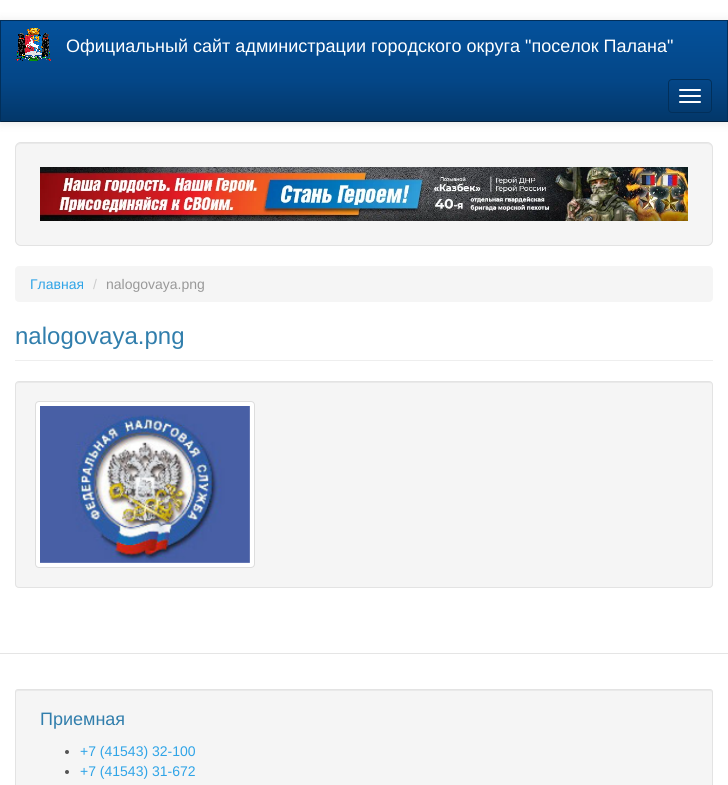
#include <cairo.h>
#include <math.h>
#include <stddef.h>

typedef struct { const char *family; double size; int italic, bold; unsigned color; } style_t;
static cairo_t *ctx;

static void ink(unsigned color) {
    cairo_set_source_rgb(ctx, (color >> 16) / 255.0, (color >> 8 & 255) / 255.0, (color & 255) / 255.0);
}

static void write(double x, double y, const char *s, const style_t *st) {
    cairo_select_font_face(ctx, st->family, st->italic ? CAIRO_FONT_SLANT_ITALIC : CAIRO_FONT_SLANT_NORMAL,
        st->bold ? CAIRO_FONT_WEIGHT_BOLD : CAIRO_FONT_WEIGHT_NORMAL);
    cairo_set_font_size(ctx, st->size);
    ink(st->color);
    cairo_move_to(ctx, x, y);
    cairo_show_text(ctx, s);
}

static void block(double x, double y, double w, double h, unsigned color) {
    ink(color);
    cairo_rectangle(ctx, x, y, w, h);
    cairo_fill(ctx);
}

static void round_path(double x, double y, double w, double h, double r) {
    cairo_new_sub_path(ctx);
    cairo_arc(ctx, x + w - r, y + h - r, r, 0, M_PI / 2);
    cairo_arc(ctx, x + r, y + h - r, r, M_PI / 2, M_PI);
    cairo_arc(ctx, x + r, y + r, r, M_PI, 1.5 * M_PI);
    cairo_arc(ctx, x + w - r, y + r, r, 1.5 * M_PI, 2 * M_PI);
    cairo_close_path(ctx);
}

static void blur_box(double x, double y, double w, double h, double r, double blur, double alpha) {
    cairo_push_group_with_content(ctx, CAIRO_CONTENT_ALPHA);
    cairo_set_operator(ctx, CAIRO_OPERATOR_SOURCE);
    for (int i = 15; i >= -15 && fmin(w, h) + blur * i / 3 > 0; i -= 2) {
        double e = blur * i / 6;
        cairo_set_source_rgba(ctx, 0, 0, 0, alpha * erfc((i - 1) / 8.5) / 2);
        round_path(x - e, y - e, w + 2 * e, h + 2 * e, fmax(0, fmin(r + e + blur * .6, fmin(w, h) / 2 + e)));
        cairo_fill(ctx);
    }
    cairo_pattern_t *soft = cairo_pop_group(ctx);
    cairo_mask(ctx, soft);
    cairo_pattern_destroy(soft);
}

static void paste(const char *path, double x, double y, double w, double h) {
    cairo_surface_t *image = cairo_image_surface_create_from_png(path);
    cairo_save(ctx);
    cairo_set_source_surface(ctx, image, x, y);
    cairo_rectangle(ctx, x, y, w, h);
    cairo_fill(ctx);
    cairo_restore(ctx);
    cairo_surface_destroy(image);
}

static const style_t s1 = {"Liberation Sans", 18, 0, 0, 0xffffff};
static const style_t s2 = {"Liberation Sans", 14, 0, 0, 0x2fa4e7};
static const style_t s3 = {"Liberation Sans", 14, 0, 0, 0xcccccc};
static const style_t s4 = {"Liberation Sans", 14, 0, 0, 0x999999};
static const style_t s5 = {"Liberation Sans", 24, 0, 0, 0x317eac};
static const style_t s6 = {"Liberation Sans", 18, 0, 0, 0x317eac};

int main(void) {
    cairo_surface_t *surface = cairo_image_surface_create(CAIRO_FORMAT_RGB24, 728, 785);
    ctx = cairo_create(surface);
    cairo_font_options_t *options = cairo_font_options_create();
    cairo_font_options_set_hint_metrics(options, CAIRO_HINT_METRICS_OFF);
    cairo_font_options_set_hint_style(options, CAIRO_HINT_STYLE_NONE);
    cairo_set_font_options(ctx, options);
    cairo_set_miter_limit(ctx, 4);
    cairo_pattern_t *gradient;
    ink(0xffffff);
    cairo_paint(ctx);
    ink(0x000000);
    blur_box(0, 21, 728, 102, 0, 5, 0.1);
    gradient = cairo_pattern_create_linear(364, 21, 364, 121);
    cairo_pattern_add_color_stop_rgba(gradient, 0, 0.016, 0.318, 0.608, 1);
    cairo_pattern_add_color_stop_rgba(gradient, 0.6, 0.016, 0.275, 0.529, 1);
    cairo_pattern_add_color_stop_rgba(gradient, 1, 0.012, 0.216, 0.412, 1);
    cairo_set_source(ctx, gradient);
    cairo_pattern_destroy(gradient);
    cairo_rectangle(ctx, 1, 21, 726, 100);
    cairo_fill(ctx);
    block(0, 20, 728, 1, 0x022f5a);
    block(727, 20, 1, 102, 0x022f5a);
    block(0, 121, 728, 1, 0x022241);
    block(0, 20, 1, 102, 0x022f5a);
    paste("pic1.png", 16, 28, 35, 33);
    write(66, 52, "Официальный сайт администрации городского округа \"поселок Палана\"", &s1);
    round_path(668.5, 79.5, 43, 33, 3.5);
    ink(0x022f5a);
    cairo_set_line_width(ctx, 1);
    cairo_stroke(ctx);
    ink(0xffffff);
    round_path(679, 89, 22, 2, 1);
    cairo_fill(ctx);
    round_path(679, 95, 22, 2, 1);
    cairo_fill(ctx);
    round_path(679, 101, 22, 2, 1);
    cairo_fill(ctx);
    ink(0xf5f5f5);
    round_path(15, 142, 698, 104, 6);
    cairo_fill(ctx);
    ink(0xe9e9e9);
    cairo_new_path(ctx);
    cairo_move_to(ctx, 21, 144);
    cairo_line_to(ctx, 707, 144);
    cairo_curve_to(ctx, 710, 144, 712, 146, 712, 149);
    cairo_line_to(ctx, 712, 148);
    cairo_curve_to(ctx, 712, 145, 710, 143, 707, 143);
    cairo_line_to(ctx, 21, 143);
    cairo_curve_to(ctx, 18, 143, 16, 145, 16, 148);
    cairo_line_to(ctx, 16, 149);
    cairo_curve_to(ctx, 16, 146, 18, 144, 21, 144);
    cairo_close_path(ctx);
    cairo_fill(ctx);
    round_path(15.5, 142.5, 697, 103, 5.5);
    ink(0xe3e3e3);
    cairo_stroke(ctx);
    paste("pic2.png", 40, 167, 648, 54);
    ink(0xf5f5f5);
    round_path(15, 266, 698, 36, 4);
    cairo_fill(ctx);
    write(30, 289, "Главная", &s2);
    write(93, 289, "/", &s3);
    write(106, 289, "nalogovaya.png", &s4);
    block(15, 360, 698, 1, 0xeeeeee);
    write(15, 344, "nalogovaya.png", &s5);
    ink(0xf5f5f5);
    round_path(15, 381, 698, 207, 4);
    cairo_fill(ctx);
    ink(0xe9e9e9);
    cairo_new_path(ctx);
    cairo_move_to(ctx, 19, 383);
    cairo_line_to(ctx, 709, 383);
    cairo_curve_to(ctx, 711, 383, 712, 384, 712, 386);
    cairo_curve_to(ctx, 712, 384, 711, 382, 709, 382);
    cairo_line_to(ctx, 19, 382);
    cairo_curve_to(ctx, 17, 382, 16, 384, 16, 386);
    cairo_curve_to(ctx, 16, 384, 17, 383, 19, 383);
    cairo_close_path(ctx);
    cairo_fill(ctx);
    round_path(15.5, 381.5, 697, 206, 3.5);
    ink(0xe3e3e3);
    cairo_stroke(ctx);
    ink(0xffffff);
    round_path(35.5, 401.5, 219, 166, 3.5);
    cairo_fill_preserve(ctx);
    ink(0xdddddd);
    cairo_stroke(ctx);
    paste("pic3.png", 40, 406, 210, 157);
    block(0, 653, 728, 1, 0xe5e5e5);
    ink(0xf5f5f5);
    round_path(15, 689, 698, 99, 3);
    cairo_fill(ctx);
    ink(0xe9e9e9);
    cairo_new_path(ctx);
    cairo_move_to(ctx, 18, 691);
    cairo_line_to(ctx, 710, 691);
    cairo_curve_to(ctx, 711, 691, 712, 692, 712, 693);
    cairo_curve_to(ctx, 712, 692, 712, 690, 710, 690);
    cairo_line_to(ctx, 18, 690);
    cairo_curve_to(ctx, 16, 690, 16, 692, 16, 693);
    cairo_curve_to(ctx, 16, 692, 17, 691, 18, 691);
    cairo_close_path(ctx);
    cairo_fill(ctx);
    round_path(15.5, 689.5, 697, 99, 2.5);
    ink(0xe3e3e3);
    cairo_stroke(ctx);
    write(40, 725, "Приемная", &s6);
    ink(0x555555);
    cairo_new_path(ctx);
    cairo_arc(ctx, 67, 752, 2, 0, 2 * M_PI);
    cairo_fill(ctx);
    write(80, 756, "+7 (41543) 32-100", &s2);
    ink(0x555555);
    cairo_new_path(ctx);
    cairo_arc(ctx, 67, 772, 2, 0, 2 * M_PI);
    cairo_fill(ctx);
    write(80, 776, "+7 (41543) 31-672", &s2);
    cairo_surface_write_to_png(surface, "screenshot.png");
    cairo_font_options_destroy(options);
    cairo_destroy(ctx);
    cairo_surface_destroy(surface);
    return 0;
}
